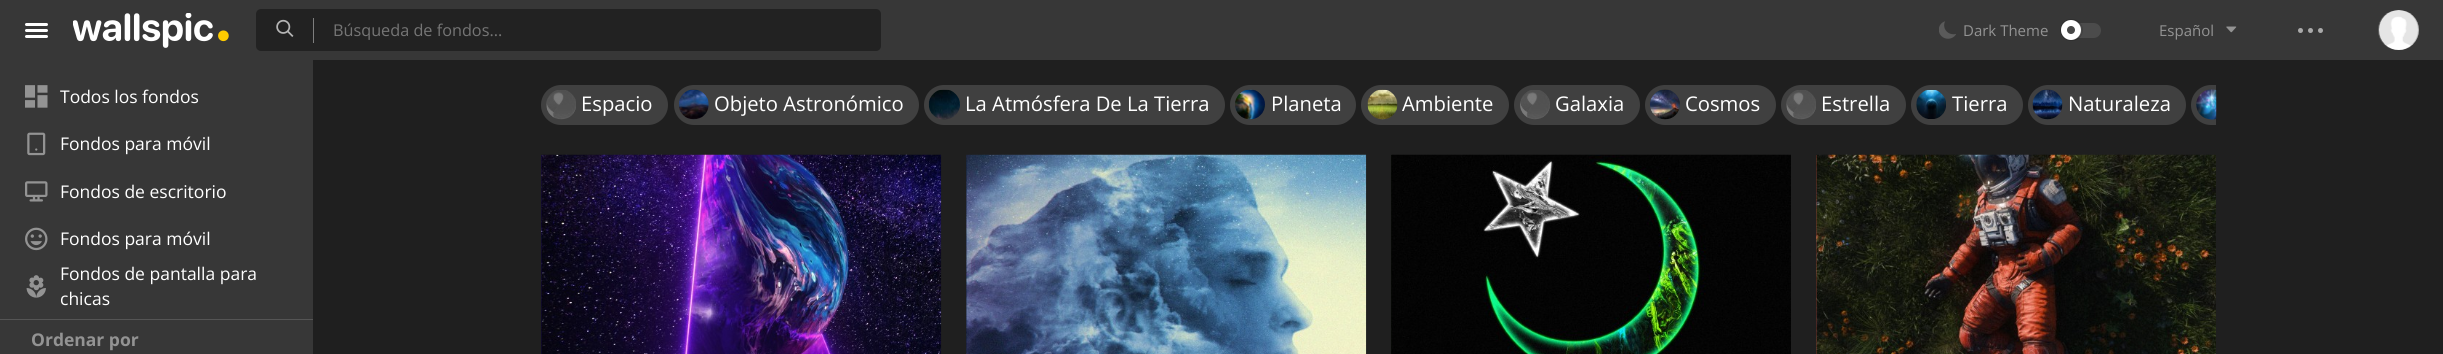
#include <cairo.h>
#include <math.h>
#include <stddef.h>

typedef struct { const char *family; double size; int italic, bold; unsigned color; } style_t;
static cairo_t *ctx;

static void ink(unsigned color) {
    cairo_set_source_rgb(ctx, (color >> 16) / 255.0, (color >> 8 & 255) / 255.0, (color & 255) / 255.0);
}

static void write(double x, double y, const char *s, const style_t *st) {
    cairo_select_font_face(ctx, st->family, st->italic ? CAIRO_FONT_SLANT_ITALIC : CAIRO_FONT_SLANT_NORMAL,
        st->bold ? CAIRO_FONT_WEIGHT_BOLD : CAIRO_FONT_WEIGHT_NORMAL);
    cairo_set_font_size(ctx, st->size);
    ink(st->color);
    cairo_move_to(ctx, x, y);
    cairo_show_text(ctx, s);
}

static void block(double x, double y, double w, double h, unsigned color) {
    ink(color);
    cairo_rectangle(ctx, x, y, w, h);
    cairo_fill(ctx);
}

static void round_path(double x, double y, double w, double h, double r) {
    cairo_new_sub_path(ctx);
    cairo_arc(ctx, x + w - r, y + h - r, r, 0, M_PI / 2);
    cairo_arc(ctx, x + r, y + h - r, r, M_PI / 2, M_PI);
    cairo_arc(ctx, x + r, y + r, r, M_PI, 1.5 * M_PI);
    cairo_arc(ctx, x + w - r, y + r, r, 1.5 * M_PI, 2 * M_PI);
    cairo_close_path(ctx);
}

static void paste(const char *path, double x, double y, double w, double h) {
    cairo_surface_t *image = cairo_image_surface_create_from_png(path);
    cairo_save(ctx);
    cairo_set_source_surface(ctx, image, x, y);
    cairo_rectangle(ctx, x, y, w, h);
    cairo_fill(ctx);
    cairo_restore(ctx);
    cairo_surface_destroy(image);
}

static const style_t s1 = {"Open Sans", 16.25, 0, 0, 0x757575};
static const style_t s2 = {"Open Sans", 15, 0, 0, 0x939393};
static const style_t s3 = {"Open Sans", 17.5, 0, 0, 0xffffff};
static const style_t s4 = {"Open Sans", 17.5, 0, 1, 0x939393};
static const style_t s5 = {"Open Sans", 20.25, 0, 0, 0xffffff};

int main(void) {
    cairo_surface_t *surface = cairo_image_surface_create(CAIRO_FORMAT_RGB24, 2443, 354);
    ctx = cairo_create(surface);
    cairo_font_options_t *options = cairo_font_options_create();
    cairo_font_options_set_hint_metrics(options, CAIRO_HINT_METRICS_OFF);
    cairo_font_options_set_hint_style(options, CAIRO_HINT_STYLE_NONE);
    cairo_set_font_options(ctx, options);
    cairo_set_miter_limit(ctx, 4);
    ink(0x1f1f1f);
    cairo_paint(ctx);
    block(0, 0, 2443, 60, 0x373737);
    ink(0xffffff);
    round_path(25, 23, 23, 3, 1.5);
    cairo_fill(ctx);
    round_path(25, 29, 23, 3, 1.5);
    cairo_fill(ctx);
    round_path(25, 35, 23, 3, 1.5);
    cairo_fill(ctx);
    paste("pic1.png", 73, 13, 156, 35);
    ink(0x222222);
    round_path(256, 9, 625, 42, 5);
    cairo_fill(ctx);
    paste("pic2.png", 276, 19, 18, 18);
    block(313, 18, 1, 25, 0x7e7e7e);
    write(333, 36, "Búsqueda de fondos...", &s1);
    paste("pic3.png", 1939, 21, 17, 18);
    ink(0x4b4b4b);
    round_path(2061, 23, 40, 15, 7.5);
    cairo_fill(ctx);
    round_path(2060.5, 19.5, 22, 21, 10.5);
    cairo_set_source_rgba(ctx, 0, 0, 0, 0.15);
    cairo_set_line_width(ctx, 1);
    cairo_stroke(ctx);
    ink(0x474747);
    cairo_arc(ctx, 2071, 30, 7, 0, 2 * M_PI);
    cairo_fill_preserve(ctx);
    ink(0xffffff);
    cairo_set_line_width(ctx, 6);
    cairo_stroke(ctx);
    write(1963, 36, "Dark Theme", &s2);
    write(2159, 36, "Español", &s2);
    paste("pic4.png", 2226, 26, 11, 7);
    ink(0xaaaaaa);
    cairo_arc(ctx, 2300.5, 30.5, 2.5, 0, 2 * M_PI);
    cairo_fill(ctx);
    cairo_arc(ctx, 2310.5, 30.5, 2.5, 0, 2 * M_PI);
    cairo_fill(ctx);
    cairo_arc(ctx, 2320.5, 30.5, 2.5, 0, 2 * M_PI);
    cairo_fill(ctx);
    paste("pic5.png", 2378, 10, 41, 40);
    block(0, 60, 313, 294, 0x373737);
    paste("pic6.png", 25, 85, 23, 23);
    write(60, 103, "Todos los fondos", &s3);
    paste("pic7.png", 27, 132, 19, 24);
    write(60, 150, "Fondos para móvil", &s3);
    paste("pic8.png", 25, 181, 23, 21);
    write(60, 198, "Fondos de escritorio", &s3);
    paste("pic9.png", 25, 227, 23, 24);
    write(60, 245, "Fondos para móvil", &s3);
    paste("pic10.png", 26, 275, 20, 23);
    write(60, 280, "Fondos de pantalla para", &s3);
    write(60, 305, "chicas", &s3);
    block(0, 319, 313, 1, 0x555555);
    write(31, 346, "Ordenar por", &s4);
    ink(0x404040);
    round_path(541, 85, 127, 40, 20);
    cairo_fill(ctx);
    paste("pic11.png", 546, 90, 30, 30);
    write(581, 111, "Espacio", &s5);
    ink(0x404040);
    round_path(674, 85, 245, 40, 20);
    cairo_fill(ctx);
    paste("pic12.png", 679, 89, 30, 31);
    write(714, 111, "Objeto Astronómico", &s5);
    ink(0x404040);
    round_path(924, 85, 301, 40, 20);
    cairo_fill(ctx);
    paste("pic13.png", 928, 89, 32, 31);
    write(965, 111, "La Atmósfera De La Tierra", &s5);
    ink(0x404040);
    round_path(1230, 85, 126, 40, 20);
    cairo_fill(ctx);
    paste("pic14.png", 1235, 89, 30, 31);
    write(1271, 111, "Planeta", &s5);
    ink(0x404040);
    round_path(1361, 85, 148, 40, 20);
    cairo_fill(ctx);
    paste("pic15.png", 1367, 89, 31, 31);
    write(1402, 111, "Ambiente", &s5);
    ink(0x404040);
    round_path(1514, 85, 126, 40, 20);
    cairo_fill(ctx);
    paste("pic16.png", 1520, 90, 30, 30);
    write(1555, 111, "Galaxia", &s5);
    ink(0x404040);
    round_path(1645, 85, 131, 40, 20);
    cairo_fill(ctx);
    paste("pic17.png", 1650, 89, 30, 31);
    write(1685, 111, "Cosmos", &s5);
    ink(0x404040);
    round_path(1781, 85, 125, 40, 20);
    cairo_fill(ctx);
    paste("pic11.png", 1786, 90, 30, 30);
    write(1821, 111, "Estrella", &s5);
    ink(0x404040);
    round_path(1911, 85, 112, 40, 20);
    cairo_fill(ctx);
    paste("pic18.png", 1916, 89, 30, 30);
    write(1952, 111, "Tierra", &s5);
    ink(0x404040);
    round_path(2028, 85, 158, 40, 20);
    cairo_fill(ctx);
    paste("pic19.png", 2032, 89, 31, 31);
    write(2068, 111, "Naturaleza", &s5);
    ink(0x404040);
    cairo_new_path(ctx);
    cairo_move_to(ctx, 2211, 85);
    cairo_line_to(ctx, 2216, 85);
    cairo_line_to(ctx, 2216, 125);
    cairo_line_to(ctx, 2211, 125);
    cairo_curve_to(ctx, 2200, 125, 2191, 116, 2191, 105);
    cairo_curve_to(ctx, 2191, 94, 2200, 85, 2211, 85);
    cairo_close_path(ctx);
    cairo_fill(ctx);
    paste("pic20.png", 2196, 89, 21, 31);
    block(541, 155, 1, 199, 0x1a1145);
    paste("pic21.png", 541, 154, 401, 200);
    block(966, 155, 1, 199, 0x121f2f);
    paste("pic22.png", 966, 154, 401, 200);
    block(1391, 155, 1, 199, 0x0c0f09);
    paste("pic23.png", 1391, 154, 400, 200);
    block(1816, 155, 1, 199, 0x8c3e36);
    paste("pic24.png", 1816, 154, 400, 200);
    cairo_surface_write_to_png(surface, "screenshot.png");
    cairo_font_options_destroy(options);
    cairo_destroy(ctx);
    cairo_surface_destroy(surface);
    return 0;
}
